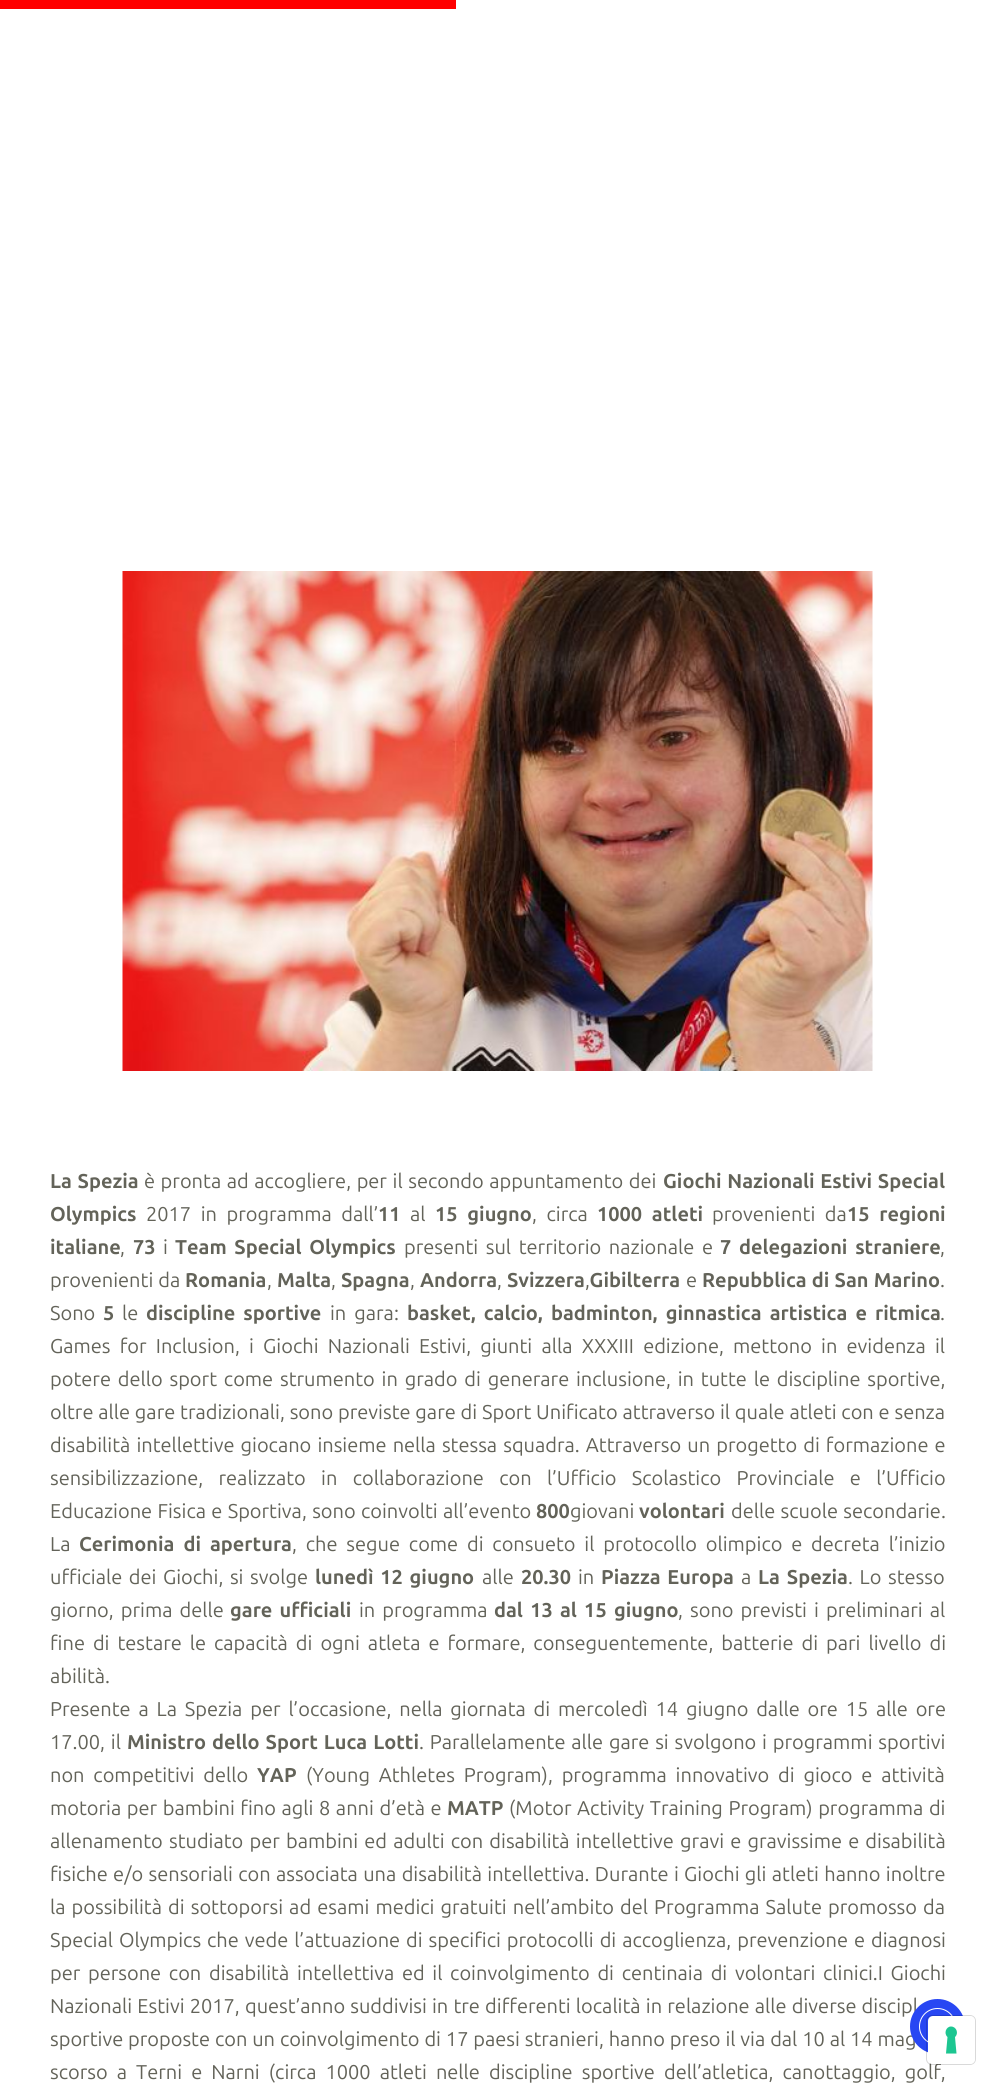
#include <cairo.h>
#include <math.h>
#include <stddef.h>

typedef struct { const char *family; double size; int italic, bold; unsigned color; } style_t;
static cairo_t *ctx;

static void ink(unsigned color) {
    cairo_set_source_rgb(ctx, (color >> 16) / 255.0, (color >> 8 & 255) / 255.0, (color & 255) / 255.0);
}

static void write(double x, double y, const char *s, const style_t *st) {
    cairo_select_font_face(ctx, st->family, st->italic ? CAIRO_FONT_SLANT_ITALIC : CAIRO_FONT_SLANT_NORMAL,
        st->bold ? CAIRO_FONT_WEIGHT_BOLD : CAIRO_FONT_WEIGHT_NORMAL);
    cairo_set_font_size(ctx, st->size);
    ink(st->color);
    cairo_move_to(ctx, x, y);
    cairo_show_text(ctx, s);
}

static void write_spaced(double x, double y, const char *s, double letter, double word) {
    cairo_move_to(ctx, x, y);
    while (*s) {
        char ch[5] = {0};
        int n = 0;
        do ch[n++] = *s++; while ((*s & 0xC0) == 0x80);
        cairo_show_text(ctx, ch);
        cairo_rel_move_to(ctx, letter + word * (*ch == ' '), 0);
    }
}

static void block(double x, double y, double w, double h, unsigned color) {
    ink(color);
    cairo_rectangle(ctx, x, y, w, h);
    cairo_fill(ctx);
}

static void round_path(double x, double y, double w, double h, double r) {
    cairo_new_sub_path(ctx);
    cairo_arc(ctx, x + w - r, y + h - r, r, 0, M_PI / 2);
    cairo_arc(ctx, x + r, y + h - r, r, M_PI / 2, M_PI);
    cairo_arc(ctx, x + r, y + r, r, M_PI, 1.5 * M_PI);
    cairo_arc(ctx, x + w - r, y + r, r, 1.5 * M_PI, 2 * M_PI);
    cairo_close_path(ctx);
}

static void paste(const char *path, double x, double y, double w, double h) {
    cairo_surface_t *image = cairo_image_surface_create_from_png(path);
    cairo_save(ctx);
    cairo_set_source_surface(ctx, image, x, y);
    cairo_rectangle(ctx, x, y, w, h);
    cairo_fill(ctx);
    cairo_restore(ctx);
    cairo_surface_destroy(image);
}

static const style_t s1 = {"Ubuntu", 20, 0, 1, 0x636359};
static const style_t s2 = {"Ubuntu", 20, 0, 0, 0x636359};

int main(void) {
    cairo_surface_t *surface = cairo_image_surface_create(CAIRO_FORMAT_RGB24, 995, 2083);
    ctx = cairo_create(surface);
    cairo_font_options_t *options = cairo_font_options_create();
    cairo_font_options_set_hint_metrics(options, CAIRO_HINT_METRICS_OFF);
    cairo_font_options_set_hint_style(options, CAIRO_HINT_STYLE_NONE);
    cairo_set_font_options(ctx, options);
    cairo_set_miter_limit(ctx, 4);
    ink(0xffffff);
    cairo_paint(ctx);
    block(0, 0, 456, 9, 0xff0000);
    paste("pic1.png", 122, 571, 751, 500);
    cairo_select_font_face(ctx, "Ubuntu", CAIRO_FONT_SLANT_NORMAL, CAIRO_FONT_WEIGHT_BOLD);
    cairo_set_font_size(ctx, 20);
    ink(0x636359);
    write_spaced(50, 1188, "La Spezia", 0, 1);
    cairo_select_font_face(ctx, "Ubuntu", CAIRO_FONT_SLANT_NORMAL, CAIRO_FONT_WEIGHT_NORMAL);
    write_spaced(144, 1188, "è pronta ad accogliere, per il secondo appuntamento dei", 0, 1);
    cairo_select_font_face(ctx, "Ubuntu", CAIRO_FONT_SLANT_NORMAL, CAIRO_FONT_WEIGHT_BOLD);
    write_spaced(663, 1188, "Giochi Nazionali Estivi Special", 0, 1);
    write(50, 1221, "Olympics", &s1);
    cairo_select_font_face(ctx, "Ubuntu", CAIRO_FONT_SLANT_NORMAL, CAIRO_FONT_WEIGHT_NORMAL);
    write_spaced(146, 1221, "2017 in programma dall’", 0, 5);
    write(378, 1221, "11", &s1);
    write(410, 1221, "al", &s2);
    cairo_select_font_face(ctx, "Ubuntu", CAIRO_FONT_SLANT_NORMAL, CAIRO_FONT_WEIGHT_BOLD);
    write_spaced(435, 1221, "15 giugno", 0, 5);
    cairo_select_font_face(ctx, "Ubuntu", CAIRO_FONT_SLANT_NORMAL, CAIRO_FONT_WEIGHT_NORMAL);
    write_spaced(532, 1221, ", circa", 0, 5);
    cairo_select_font_face(ctx, "Ubuntu", CAIRO_FONT_SLANT_NORMAL, CAIRO_FONT_WEIGHT_BOLD);
    write_spaced(597, 1221, "1000 atleti", 0, 5);
    cairo_select_font_face(ctx, "Ubuntu", CAIRO_FONT_SLANT_NORMAL, CAIRO_FONT_WEIGHT_NORMAL);
    write_spaced(712, 1221, "provenienti da", 0, 5);
    cairo_select_font_face(ctx, "Ubuntu", CAIRO_FONT_SLANT_NORMAL, CAIRO_FONT_WEIGHT_BOLD);
    write_spaced(847, 1221, "15 regioni", 0, 5);
    write(50, 1254, "italiane", &s1);
    write(133, 1254, "73", &s1);
    write(163, 1254, "i", &s2);
    cairo_select_font_face(ctx, "Ubuntu", CAIRO_FONT_SLANT_NORMAL, CAIRO_FONT_WEIGHT_BOLD);
    write_spaced(175, 1254, "Team Special Olympics", 0, 3);
    cairo_select_font_face(ctx, "Ubuntu", CAIRO_FONT_SLANT_NORMAL, CAIRO_FONT_WEIGHT_NORMAL);
    write_spaced(404, 1254, "presenti sul territorio nazionale e", 0, 3);
    cairo_select_font_face(ctx, "Ubuntu", CAIRO_FONT_SLANT_NORMAL, CAIRO_FONT_WEIGHT_BOLD);
    write_spaced(720, 1254, "7 delegazioni straniere", 0, 3);
    write(120, 1254, ",", &s2);
    write(940, 1254, ",", &s2);
    write_spaced(50, 1287, "provenienti da", 0, 0.5);
    write(185, 1287, "Romania", &s1);
    write(267, 1287, ",", &s2);
    write(277, 1287, "Malta", &s1);
    write(331, 1287, ",", &s2);
    write(341, 1287, "Spagna", &s1);
    write(410, 1287, ",", &s2);
    write(420, 1287, "Andorra", &s1);
    write(497, 1287, ",", &s2);
    write(507, 1287, "Svizzera Gibilterra", &s1);
    write(686, 1287, "e", &s2);
    cairo_select_font_face(ctx, "Ubuntu", CAIRO_FONT_SLANT_NORMAL, CAIRO_FONT_WEIGHT_BOLD);
    write_spaced(702, 1287, "Repubblica di San Marino", 0, 0.5);
    write(940, 1287, ".", &s2);
    write(585, 1287, ",", &s2);
    write(50, 1320, "Sono", &s2);
    write(103, 1320, "5", &s1);
    write(122, 1320, "le", &s2);
    cairo_select_font_face(ctx, "Ubuntu", CAIRO_FONT_SLANT_NORMAL, CAIRO_FONT_WEIGHT_BOLD);
    write_spaced(146, 1320, "discipline sportive", 0, 3.4);
    cairo_select_font_face(ctx, "Ubuntu", CAIRO_FONT_SLANT_NORMAL, CAIRO_FONT_WEIGHT_NORMAL);
    write_spaced(330, 1320, "in gara:", 0, 3.4);
    cairo_select_font_face(ctx, "Ubuntu", CAIRO_FONT_SLANT_NORMAL, CAIRO_FONT_WEIGHT_BOLD);
    write_spaced(407, 1320, "basket, calcio, badminton, ginnastica artistica e ritmica", 0, 3.4);
    write(940, 1320, ".", &s2);
    write_spaced(50, 1353, "Games for Inclusion, i Giochi Nazionali Estivi, giunti alla XXXIII edizione, mettono in evidenza il", 0, 4.6);
    write_spaced(50, 1386, "potere dello sport come strumento in grado di generare inclusione, in tutte le discipline sportive,", 0, 2.25);
    write_spaced(50, 1419, "oltre alle gare tradizionali, sono previste gare di Sport Unificato attraverso il quale atleti con e senza", 0, 0.25);
    write_spaced(50, 1452, "disabilità intellettive giocano insieme nella stessa squadra. Attraverso un progetto di formazione e", 0, 1.5);
    write_spaced(50, 1485, "sensibilizzazione, realizzato in collaborazione con l’Ufficio Scolastico Provinciale e l’Ufficio", 0, 10.75);
    write_spaced(50, 1518, "Educazione Fisica e Sportiva, sono coinvolti all’evento", 0, 0.75);
    write(536, 1518, "800", &s1);
    write(570, 1518, "giovani", &s2);
    write(639, 1518, "volontari", &s1);
    cairo_select_font_face(ctx, "Ubuntu", CAIRO_FONT_SLANT_NORMAL, CAIRO_FONT_WEIGHT_NORMAL);
    write_spaced(731, 1518, "delle scuole secondarie.", 0, 0.75);
    write(50, 1551, "La", &s2);
    cairo_select_font_face(ctx, "Ubuntu", CAIRO_FONT_SLANT_NORMAL, CAIRO_FONT_WEIGHT_BOLD);
    write_spaced(79, 1551, "Cerimonia di apertura", 0, 4.25);
    cairo_select_font_face(ctx, "Ubuntu", CAIRO_FONT_SLANT_NORMAL, CAIRO_FONT_WEIGHT_NORMAL);
    write_spaced(292, 1551, ", che segue come di consueto il protocollo olimpico e decreta l’inizio", 0, 4.25);
    write_spaced(50, 1584, "ufficiale dei Giochi, si svolge", 0, 2);
    cairo_select_font_face(ctx, "Ubuntu", CAIRO_FONT_SLANT_NORMAL, CAIRO_FONT_WEIGHT_BOLD);
    write_spaced(315, 1584, "lunedì 12 giugno", 0, 2);
    write(482, 1584, "alle", &s2);
    write(521, 1584, "20.30", &s1);
    write(578, 1584, "in", &s2);
    cairo_select_font_face(ctx, "Ubuntu", CAIRO_FONT_SLANT_NORMAL, CAIRO_FONT_WEIGHT_BOLD);
    write_spaced(601, 1584, "Piazza Europa", 0, 2);
    write(741, 1584, "a", &s2);
    cairo_select_font_face(ctx, "Ubuntu", CAIRO_FONT_SLANT_NORMAL, CAIRO_FONT_WEIGHT_BOLD);
    write_spaced(758, 1584, "La Spezia", 0, 2.25);
    cairo_select_font_face(ctx, "Ubuntu", CAIRO_FONT_SLANT_NORMAL, CAIRO_FONT_WEIGHT_NORMAL);
    write_spaced(848, 1584, ". Lo stesso", 0, 2);
    write_spaced(50, 1617, "giorno, prima delle", 0, 2.5);
    cairo_select_font_face(ctx, "Ubuntu", CAIRO_FONT_SLANT_NORMAL, CAIRO_FONT_WEIGHT_BOLD);
    write_spaced(230, 1617, "gare ufficiali", 0, 2.5);
    cairo_select_font_face(ctx, "Ubuntu", CAIRO_FONT_SLANT_NORMAL, CAIRO_FONT_WEIGHT_NORMAL);
    write_spaced(359, 1617, "in programma", 0, 2.5);
    cairo_select_font_face(ctx, "Ubuntu", CAIRO_FONT_SLANT_NORMAL, CAIRO_FONT_WEIGHT_BOLD);
    write_spaced(494, 1617, "dal 13 al 15 giugno", 0, 2.5);
    cairo_select_font_face(ctx, "Ubuntu", CAIRO_FONT_SLANT_NORMAL, CAIRO_FONT_WEIGHT_NORMAL);
    write_spaced(678, 1617, ", sono previsti i preliminari al", 0, 2.5);
    write_spaced(50, 1650, "fine di testare le capacità di ogni atleta e formare, conseguentemente, batterie di pari livello di", 0, 3.4);
    write(50, 1683, "abilità.", &s2);
    write_spaced(50, 1716, "Presente a La Spezia per l’occasione, nella giornata di mercoledì 14 giugno dalle ore 15 alle ore", 0, 3.25);
    write_spaced(50, 1749, "17.00, il", 0, 1.25);
    cairo_select_font_face(ctx, "Ubuntu", CAIRO_FONT_SLANT_NORMAL, CAIRO_FONT_WEIGHT_BOLD);
    write_spaced(127, 1749, "Ministro dello Sport Luca Lotti", 0, 1.25);
    cairo_select_font_face(ctx, "Ubuntu", CAIRO_FONT_SLANT_NORMAL, CAIRO_FONT_WEIGHT_NORMAL);
    write_spaced(419, 1749, ". Parallelamente alle gare si svolgono i programmi sportivi", 0, 1.25);
    write_spaced(50, 1782, "non competitivi dello", 0, 4.25);
    write(257, 1782, "YAP", &s1);
    cairo_select_font_face(ctx, "Ubuntu", CAIRO_FONT_SLANT_NORMAL, CAIRO_FONT_WEIGHT_NORMAL);
    write_spaced(306, 1782, "(Young Athletes Program), programma innovativo di gioco e attività", 0, 4.25);
    write_spaced(50, 1815, "motoria per bambini fino agli 8 anni d’età e", 0, 1);
    write(447, 1815, "MATP", &s1);
    cairo_select_font_face(ctx, "Ubuntu", CAIRO_FONT_SLANT_NORMAL, CAIRO_FONT_WEIGHT_NORMAL);
    write_spaced(509, 1815, "(Motor Activity Training Program) programma di", 0, 1);
    write_spaced(50, 1848, "allenamento studiato per bambini ed adulti con disabilità intellettive gravi e gravissime e disabilità", 0, 1.6);
    write_spaced(50, 1881, "fisiche e/o sensoriali con associata una disabilità intellettiva. Durante i Giochi gli atleti hanno inoltre", 0, 0.75);
    write_spaced(50, 1914, "la possibilità di sottoporsi ad esami medici gratuiti nell’ambito del Programma Salute promosso da", 0, 1.5);
    write_spaced(50, 1947, "Special Olympics che vede l’attuazione di specifici protocolli di accoglienza, prevenzione e diagnosi", 0, 1.4);
    write_spaced(50, 1980, "per persone con disabilità intellettiva ed il coinvolgimento di centinaia di volontari clinici.I Giochi", 0, 3.1);
    write_spaced(50, 2013, "Nazionali Estivi 2017, quest’anno suddivisi in tre differenti località in relazione alle diverse discipl", 0, 0.6);
    write_spaced(50, 2046, "sportive proposte con un coinvolgimento di 17 paesi stranieri, hanno preso il via dal 10 al 14 mag", 0, 0.3);
    write_spaced(50, 2079, "scorso a Terni e Narni (circa 1000 atleti nelle discipline sportive dell’atletica, canottaggio, golf,", 0, 4.5);
    ink(0x2847f3);
    cairo_new_path(ctx);
    cairo_arc(ctx, 937.5, 2026.5, 27.5, 0, 2 * M_PI);
    cairo_fill(ctx);
    cairo_arc(ctx, 937.5, 2026.5, 18, 0, 2 * M_PI);
    ink(0xffffff);
    cairo_set_line_width(ctx, 1);
    cairo_stroke(ctx);
    round_path(926.5, 2015.5, 49, 49, 5.5);
    cairo_set_source_rgba(ctx, 0, 0, 0, 0.15);
    cairo_stroke(ctx);
    ink(0xffffff);
    round_path(928, 2016, 47, 48, 5);
    cairo_fill(ctx);
    ink(0x1cc691);
    cairo_set_fill_rule(ctx, CAIRO_FILL_RULE_EVEN_ODD);
    cairo_new_path(ctx);
    cairo_move_to(ctx, 951, 2026.5);
    cairo_curve_to(ctx, 956.5, 2026.5, 959, 2033.5, 955, 2037);
    cairo_line_to(ctx, 956.5, 2053.5);
    cairo_line_to(ctx, 946, 2053.5);
    cairo_line_to(ctx, 947.5, 2037);
    cairo_curve_to(ctx, 943.5, 2033.5, 946, 2026.5, 951, 2026.5);
    cairo_close_path(ctx);
    cairo_fill(ctx);
    cairo_surface_write_to_png(surface, "screenshot.png");
    cairo_font_options_destroy(options);
    cairo_destroy(ctx);
    cairo_surface_destroy(surface);
    return 0;
}
